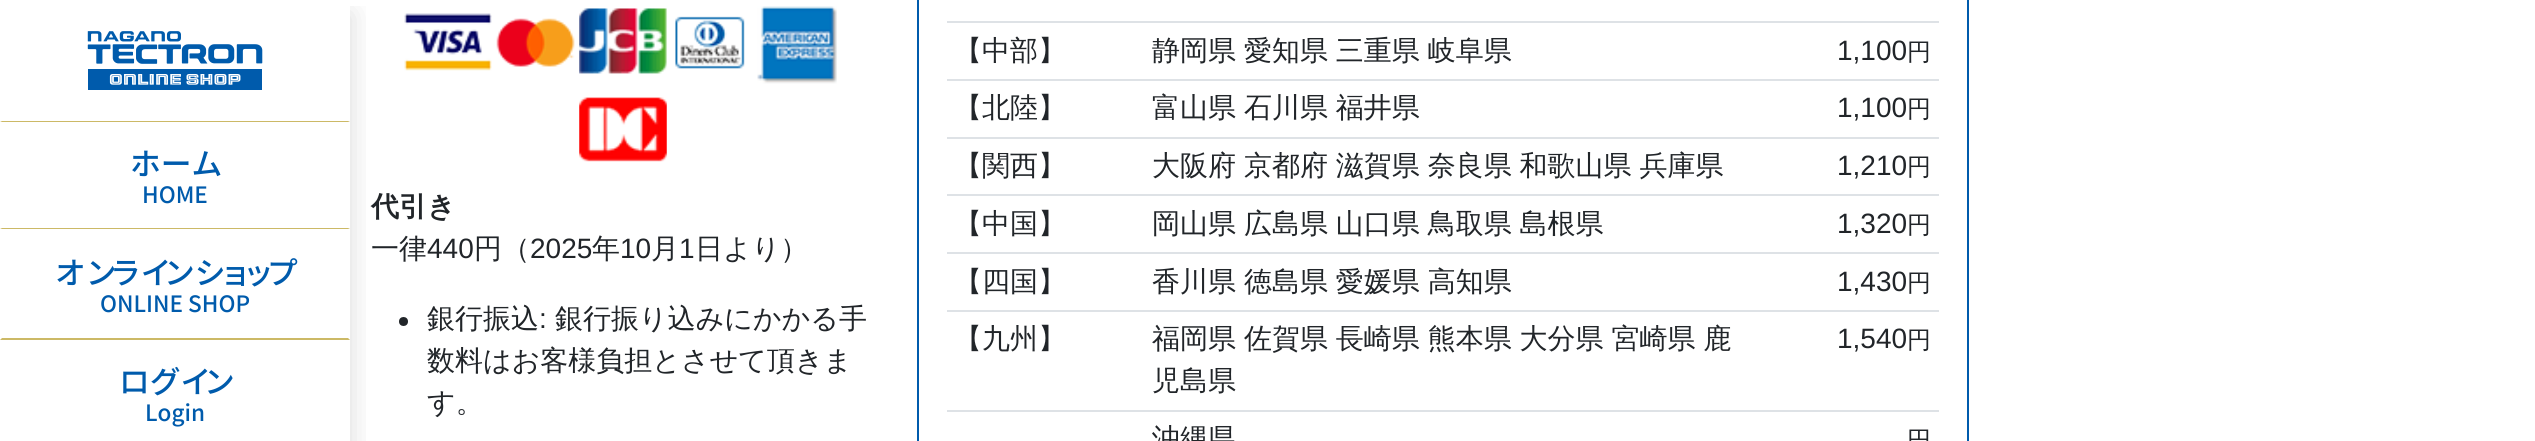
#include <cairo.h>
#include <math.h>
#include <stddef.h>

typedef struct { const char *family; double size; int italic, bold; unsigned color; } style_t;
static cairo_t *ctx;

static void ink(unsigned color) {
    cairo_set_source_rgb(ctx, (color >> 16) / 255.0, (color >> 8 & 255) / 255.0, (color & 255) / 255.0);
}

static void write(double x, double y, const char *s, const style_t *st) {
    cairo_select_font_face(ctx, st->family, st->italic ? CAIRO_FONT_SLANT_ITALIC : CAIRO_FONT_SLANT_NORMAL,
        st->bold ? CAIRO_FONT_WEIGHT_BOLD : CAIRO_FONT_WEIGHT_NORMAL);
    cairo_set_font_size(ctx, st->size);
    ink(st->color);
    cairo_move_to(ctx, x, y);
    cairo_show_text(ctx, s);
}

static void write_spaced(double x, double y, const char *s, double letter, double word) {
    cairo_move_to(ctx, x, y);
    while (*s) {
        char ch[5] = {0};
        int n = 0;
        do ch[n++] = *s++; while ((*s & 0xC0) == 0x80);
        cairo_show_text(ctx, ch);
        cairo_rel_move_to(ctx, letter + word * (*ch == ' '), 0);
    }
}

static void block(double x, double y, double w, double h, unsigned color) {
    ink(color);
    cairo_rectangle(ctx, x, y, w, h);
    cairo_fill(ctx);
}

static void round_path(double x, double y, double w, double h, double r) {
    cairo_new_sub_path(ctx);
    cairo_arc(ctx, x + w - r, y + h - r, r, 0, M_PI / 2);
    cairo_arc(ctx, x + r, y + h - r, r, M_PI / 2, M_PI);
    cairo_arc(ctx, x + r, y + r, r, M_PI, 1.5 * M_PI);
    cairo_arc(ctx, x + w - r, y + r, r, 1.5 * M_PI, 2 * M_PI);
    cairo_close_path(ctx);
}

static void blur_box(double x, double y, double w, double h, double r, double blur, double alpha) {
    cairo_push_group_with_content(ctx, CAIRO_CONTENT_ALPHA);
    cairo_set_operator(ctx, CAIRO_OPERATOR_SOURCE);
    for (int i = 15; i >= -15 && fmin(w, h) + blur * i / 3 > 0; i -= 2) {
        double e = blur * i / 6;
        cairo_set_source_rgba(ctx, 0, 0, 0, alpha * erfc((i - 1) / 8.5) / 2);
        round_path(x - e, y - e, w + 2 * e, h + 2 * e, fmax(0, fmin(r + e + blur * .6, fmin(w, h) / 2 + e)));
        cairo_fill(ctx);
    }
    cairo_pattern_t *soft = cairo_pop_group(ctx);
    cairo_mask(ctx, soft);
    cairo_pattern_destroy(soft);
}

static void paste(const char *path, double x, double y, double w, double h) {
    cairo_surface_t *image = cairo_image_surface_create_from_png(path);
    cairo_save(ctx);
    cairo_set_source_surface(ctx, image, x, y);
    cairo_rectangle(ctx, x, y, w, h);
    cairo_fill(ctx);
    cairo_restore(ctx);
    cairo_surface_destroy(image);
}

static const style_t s1 = {"Noto Sans JP Medium", 30.75, 0, 0, 0x005bac};
static const style_t s2 = {"Noto Sans JP Medium", 22.5, 0, 0, 0x005bac};
static const style_t s3 = {"WenQuanYi Zen Hei", 28, 0, 1, 0x212529};
static const style_t s4 = {"WenQuanYi Zen Hei Medium", 28, 0, 0, 0x212529};
static const style_t s5 = {"Liberation Sans", 28, 0, 0, 0x212529};
static const style_t s6 = {"WenQuanYi Zen Hei Medium", 24, 0, 0, 0x212529};

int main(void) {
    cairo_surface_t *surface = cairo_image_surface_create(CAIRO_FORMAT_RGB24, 2535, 441);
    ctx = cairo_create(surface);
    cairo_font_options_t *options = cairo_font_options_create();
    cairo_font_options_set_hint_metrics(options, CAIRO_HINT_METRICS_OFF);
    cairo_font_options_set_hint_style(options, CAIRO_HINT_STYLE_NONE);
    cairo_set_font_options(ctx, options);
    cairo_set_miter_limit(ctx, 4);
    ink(0xffffff);
    cairo_paint(ctx);
    cairo_save(ctx);
    cairo_rectangle(ctx, 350, 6, 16, 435);
    cairo_clip(ctx);
    ink(0x000000);
    blur_box(0, 14, 350, 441, 0, 14, 0.15);
    cairo_restore(ctx);
    paste("pic1.png", 87, 31, 176, 59);
    ink(0xccb966);
    cairo_new_path(ctx);
    cairo_move_to(ctx, 0, 121);
    cairo_line_to(ctx, 350, 121);
    cairo_line_to(ctx, 348, 122);
    cairo_line_to(ctx, 2, 122);
    cairo_close_path(ctx);
    cairo_fill(ctx);
    cairo_new_path(ctx);
    cairo_move_to(ctx, 350, 229);
    cairo_line_to(ctx, 0, 229);
    cairo_line_to(ctx, 2, 228);
    cairo_line_to(ctx, 348, 228);
    cairo_close_path(ctx);
    cairo_fill(ctx);
    write(130, 175, "ホーム", &s1);
    write(142, 203, "HOME", &s2);
    ink(0xccb966);
    cairo_new_path(ctx);
    cairo_move_to(ctx, 350, 340);
    cairo_line_to(ctx, 0, 340);
    cairo_line_to(ctx, 2, 338);
    cairo_line_to(ctx, 348, 338);
    cairo_close_path(ctx);
    cairo_fill(ctx);
    write(55, 284, "オン", &s1);
    write(110, 284, "ライ", &s1);
    write(164, 284, "ンシ", &s1);
    write(220, 284, "ョ", &s1);
    write(243, 284, "ッ", &s1);
    write(267, 284, "プ", &s1);
    write(100, 312, "ONLINE SHOP", &s2);
    write(119, 393, "ログイ", &s1);
    write(204, 393, "ン", &s1);
    write(145, 421, "Login", &s2);
    paste("pic2.png", 404, 13, 88, 58);
    paste("pic3.png", 496, 18, 79, 49);
    paste("pic4.png", 579, 8, 88, 66);
    paste("pic5.png", 666, 8, 79, 61);
    paste("pic6.png", 757, 6, 80, 78);
    paste("pic7.png", 579, 97, 88, 65);
    write(371, 216, "代引き", &s3);
    write(371, 258, "一律", &s4);
    write(427, 258, "440", &s5);
    write(474, 258, "円（", &s4);
    write(530, 258, "2025", &s5);
    write(592, 258, "年", &s4);
    write(620, 258, "10", &s5);
    write(651, 258, "月", &s4);
    write(679, 258, "1", &s5);
    write(695, 258, "日より）", &s4);
    cairo_new_path(ctx);
    cairo_arc(ctx, 403.5, 321.5, 4.5, 0, 2 * M_PI);
    cairo_fill(ctx);
    write(427, 328, "銀行振込", &s4);
    write(539, 328, ":", &s5);
    write(555, 328, "銀行振り込みにかかる手", &s4);
    write(427, 370, "数料はお客様負担とさせて頂きま", &s4);
    write(427, 412, "す。", &s4);
    block(1967, 0, 2, 441, 0x005bac);
    block(917, 0, 2, 441, 0x005bac);
    block(947, 21, 992, 2, 0xdee2e6);
    write(954, 60, "【中部】", &s4);
    write_spaced(1152, 60, "静岡県 愛知県 三重県 岐阜県", 0, -0.5);
    block(947, 79, 992, 2, 0xdee2e6);
    write(1837, 60, "1,100", &s5);
    write(1907, 60, "円", &s6);
    write(954, 117, "【北陸】", &s4);
    write_spaced(1152, 117, "富山県 石川県 福井県", 0, -0.5);
    block(947, 137, 992, 2, 0xdee2e6);
    write(1837, 117, "1,100", &s5);
    write(1907, 117, "円", &s6);
    write(954, 175, "【関西】", &s4);
    write_spaced(1152, 175, "大阪府 京都府 滋賀県 奈良県 和歌山県 兵庫県", 0, -0.5);
    block(947, 194, 992, 2, 0xdee2e6);
    write(1837, 175, "1,210", &s5);
    write(1907, 175, "円", &s6);
    write(954, 233, "【中国】", &s4);
    write_spaced(1152, 233, "岡山県 広島県 山口県 鳥取県 島根県", 0, -0.5);
    block(947, 252, 992, 2, 0xdee2e6);
    write(1837, 233, "1,320", &s5);
    write(1907, 233, "円", &s6);
    write(954, 291, "【四国】", &s4);
    write_spaced(1152, 291, "香川県 徳島県 愛媛県 高知県", 0, -0.5);
    block(947, 310, 992, 2, 0xdee2e6);
    write(1837, 291, "1,430", &s5);
    write(1907, 291, "円", &s6);
    write(954, 348, "【九州】", &s4);
    write_spaced(1152, 348, "福岡県 佐賀県 長崎県 熊本県 大分県 宮崎県 鹿", 0, -0.5);
    write(1152, 390, "児島県", &s4);
    block(947, 410, 992, 2, 0xdee2e6);
    write(1837, 348, "1,540", &s5);
    write(1907, 348, "円", &s6);
    write(1152, 448, "沖縄県", &s4);
    write(1907, 448, "円", &s6);
    cairo_surface_write_to_png(surface, "screenshot.png");
    cairo_font_options_destroy(options);
    cairo_destroy(ctx);
    cairo_surface_destroy(surface);
    return 0;
}
